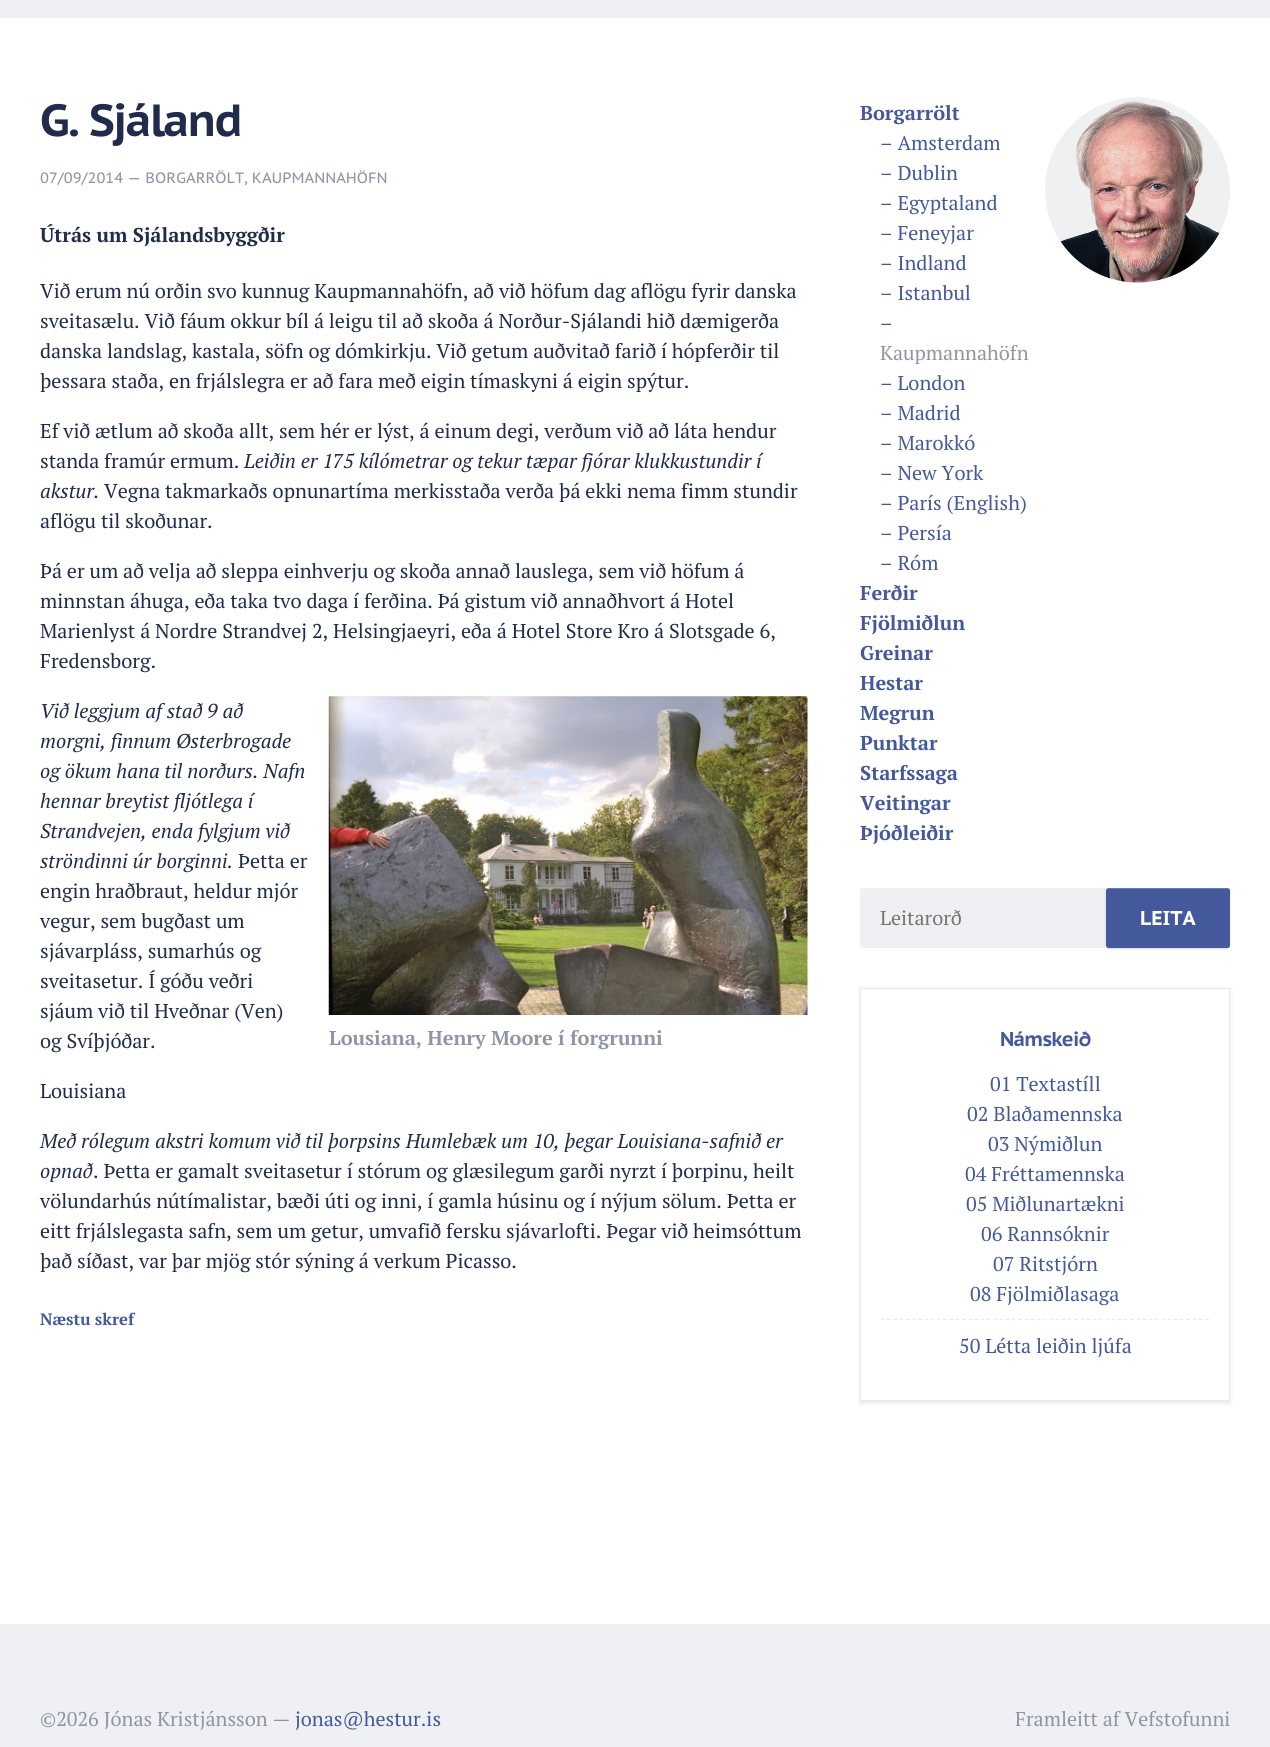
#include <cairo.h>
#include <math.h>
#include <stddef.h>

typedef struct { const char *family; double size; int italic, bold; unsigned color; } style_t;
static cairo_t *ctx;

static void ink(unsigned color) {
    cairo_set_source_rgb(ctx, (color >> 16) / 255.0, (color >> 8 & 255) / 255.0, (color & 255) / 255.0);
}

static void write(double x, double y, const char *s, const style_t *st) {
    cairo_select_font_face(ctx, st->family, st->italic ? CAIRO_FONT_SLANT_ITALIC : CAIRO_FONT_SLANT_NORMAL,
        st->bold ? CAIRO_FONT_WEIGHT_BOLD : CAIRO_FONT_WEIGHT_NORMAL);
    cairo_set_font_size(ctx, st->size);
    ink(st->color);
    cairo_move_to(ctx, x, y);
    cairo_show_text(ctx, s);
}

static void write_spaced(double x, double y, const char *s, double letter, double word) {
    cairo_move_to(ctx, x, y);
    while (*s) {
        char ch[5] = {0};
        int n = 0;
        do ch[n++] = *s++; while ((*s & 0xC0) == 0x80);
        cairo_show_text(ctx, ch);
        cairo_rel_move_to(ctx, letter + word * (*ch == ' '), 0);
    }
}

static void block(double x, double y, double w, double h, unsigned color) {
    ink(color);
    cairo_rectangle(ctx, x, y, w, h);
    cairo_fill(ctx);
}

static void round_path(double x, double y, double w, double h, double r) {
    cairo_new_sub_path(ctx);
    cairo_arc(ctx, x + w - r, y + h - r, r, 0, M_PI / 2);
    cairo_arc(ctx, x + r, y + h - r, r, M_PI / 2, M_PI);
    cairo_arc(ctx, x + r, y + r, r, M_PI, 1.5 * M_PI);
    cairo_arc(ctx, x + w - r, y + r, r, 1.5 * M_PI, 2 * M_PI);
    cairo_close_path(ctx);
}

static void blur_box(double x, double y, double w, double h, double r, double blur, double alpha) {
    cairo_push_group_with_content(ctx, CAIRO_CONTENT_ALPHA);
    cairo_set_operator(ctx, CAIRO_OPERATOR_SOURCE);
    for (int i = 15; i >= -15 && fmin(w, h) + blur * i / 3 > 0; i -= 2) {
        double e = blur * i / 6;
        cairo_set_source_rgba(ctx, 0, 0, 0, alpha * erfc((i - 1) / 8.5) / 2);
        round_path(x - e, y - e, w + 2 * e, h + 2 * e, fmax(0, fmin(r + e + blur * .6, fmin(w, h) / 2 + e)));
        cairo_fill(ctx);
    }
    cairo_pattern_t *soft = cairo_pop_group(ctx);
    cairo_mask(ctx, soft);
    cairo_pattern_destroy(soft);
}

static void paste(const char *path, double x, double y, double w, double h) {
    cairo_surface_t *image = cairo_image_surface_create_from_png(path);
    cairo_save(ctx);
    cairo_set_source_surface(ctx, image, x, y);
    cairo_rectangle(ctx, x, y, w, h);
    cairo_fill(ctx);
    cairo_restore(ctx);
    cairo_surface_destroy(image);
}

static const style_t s1 = {"PT Sans Caption", 15, 0, 0, 0x8f95a6};
static const style_t s2 = {"PT Serif", 20, 0, 1, 0x212c4d};
static const style_t s3 = {"PT Serif", 20, 0, 0, 0x212c4d};
static const style_t s4 = {"PT Serif", 20, 1, 0, 0x212c4d};
static const style_t s5 = {"PT Serif", 20, 0, 1, 0x8f95a6};
static const style_t s6 = {"PT Serif", 16.5, 0, 1, 0x44599b};
static const style_t s7 = {"PT Serif", 20, 0, 1, 0x44599b};
static const style_t s8 = {"PT Serif", 20, 0, 0, 0x44599b};
static const style_t s9 = {"PT Serif", 20, 0, 0, 0x8f95a6};
static const style_t s10 = {"PT Serif", 20, 0, 0, 0x757575};
static const style_t s11 = {"PT Sans Caption", 20, 0, 1, 0xffffff};

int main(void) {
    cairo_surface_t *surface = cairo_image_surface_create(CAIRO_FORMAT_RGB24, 1270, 1747);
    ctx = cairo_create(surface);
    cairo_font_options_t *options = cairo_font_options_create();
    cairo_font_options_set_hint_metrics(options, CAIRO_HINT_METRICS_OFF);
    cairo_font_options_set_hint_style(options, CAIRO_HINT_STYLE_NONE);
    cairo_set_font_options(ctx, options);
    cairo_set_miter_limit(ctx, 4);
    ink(0xffffff);
    cairo_paint(ctx);
    block(0, 0, 1270, 18, 0xeff0f3);
    cairo_select_font_face(ctx, "PT Sans Caption", CAIRO_FONT_SLANT_NORMAL, CAIRO_FONT_WEIGHT_BOLD);
    cairo_set_font_size(ctx, 45);
    ink(0x212c4d);
    write_spaced(40, 136, "G. Sjáland", -1.75, 0);
    write(40, 183, "07/09/2014 — BORGARRÖLT, KAUPMANNAHÖFN", &s1);
    write(40, 242, "Útrás um Sjálandsbyggðir", &s2);
    write(40, 298, "Við erum nú orðin svo kunnug Kaupmannahöfn, að við höfum dag aflögu fyrir danska", &s3);
    write(40, 328, "sveitasælu. Við fáum okkur bíl á leigu til að skoða á Norður-Sjálandi hið dæmigerða", &s3);
    write(40, 358, "danska landslag, kastala, söfn og dómkirkju. Við getum auðvitað farið í hópferðir til", &s3);
    write(40, 388, "þessara staða, en frjálslegra er að fara með eigin tímaskyni á eigin spýtur.", &s3);
    write(40, 438, "Ef við ætlum að skoða allt, sem hér er lýst, á einum degi, verðum við að láta hendur", &s3);
    write(40, 468, "standa framúr ermum.", &s3);
    write(244, 468, "Leiðin er 175 kílómetrar og tekur tæpar fjórar klukkustundir í", &s4);
    write(40, 498, "akstur.", &s4);
    write(104, 498, "Vegna takmarkaðs opnunartíma merkisstaða verða þá ekki nema fimm stundir", &s3);
    write(40, 528, "aflögu til skoðunar.", &s3);
    write(40, 578, "Þá er um að velja að sleppa einhverju og skoða annað lauslega, sem við höfum á", &s3);
    write(40, 608, "minnstan áhuga, eða taka tvo daga í ferðina. Þá gistum við annaðhvort á Hotel", &s3);
    write(40, 638, "Marienlyst á Nordre Strandvej 2, Helsingjaeyri, eða á Hotel Store Kro á Slotsgade 6,", &s3);
    write(40, 668, "Fredensborg.", &s3);
    write(40, 718, "Við leggjum af stað 9 að", &s4);
    write(40, 748, "morgni, finnum Østerbrogade", &s4);
    write(40, 778, "og ökum hana til norðurs. Nafn", &s4);
    write(40, 808, "hennar breytist fljótlega í", &s4);
    write(40, 838, "Strandvejen, enda fylgjum við", &s4);
    write(40, 868, "ströndinni úr borginni.", &s4);
    write(238, 868, "Þetta er", &s3);
    write(40, 898, "engin hraðbraut, heldur mjór", &s3);
    write(40, 928, "vegur, sem bugðast um", &s3);
    write(40, 958, "sjávarpláss, sumarhús og", &s3);
    write(40, 988, "sveitasetur. Í góðu veðri", &s3);
    write(40, 1018, "sjáum við til Hveðnar (Ven)", &s3);
    write(40, 1048, "og Svíþjóðar.", &s3);
    paste("pic1.png", 328, 696, 480, 319);
    write(329, 1045, "Lousiana, Henry Moore í forgrunni", &s5);
    write(40, 1098, "Louisiana", &s3);
    write(40, 1148, "Með rólegum akstri komum við til þorpsins Humlebæk um 10, þegar Louisiana-safnið er", &s4);
    write(40, 1178, "opnað", &s4);
    write(93, 1178, ". Þetta er gamalt sveitasetur í stórum og glæsilegum garði nyrzt í þorpinu, heilt", &s3);
    write(40, 1208, "völundarhús nútímalistar, bæði úti og inni, í gamla húsinu og í nýjum sölum. Þetta er", &s3);
    write(40, 1238, "eitt frjálslegasta safn, sem um getur, umvafið fersku sjávarlofti. Þegar við heimsóttum", &s3);
    write(40, 1268, "það síðast, var þar mjög stór sýning á verkum Picasso.", &s3);
    write(40, 1325, "Næstu skref", &s6);
    write(860, 120, "Borgarrölt", &s7);
    write(880, 150, "– Amsterdam", &s8);
    write(880, 180, "– Dublin", &s8);
    write(880, 210, "– Egyptaland", &s8);
    write(880, 240, "– Feneyjar", &s8);
    write(880, 270, "– Indland", &s8);
    write(880, 300, "– Istanbul", &s8);
    write(880, 330, "–", &s8);
    write(880, 360, "Kaupmannahöfn", &s9);
    write(880, 390, "– London", &s8);
    write(880, 420, "– Madrid", &s8);
    write(880, 450, "– Marokkó", &s8);
    write(880, 480, "– New York", &s8);
    write(880, 510, "– París (English)", &s8);
    write(880, 540, "– Persía", &s8);
    write(880, 570, "– Róm", &s8);
    write(860, 600, "Ferðir", &s7);
    write(860, 630, "Fjölmiðlun", &s7);
    write(860, 660, "Greinar", &s7);
    write(860, 690, "Hestar", &s7);
    write(860, 720, "Megrun", &s7);
    write(860, 750, "Punktar", &s7);
    write(860, 780, "Starfssaga", &s7);
    write(860, 810, "Veitingar", &s7);
    write(860, 840, "Þjóðleiðir", &s7);
    paste("pic2.png", 1045, 97, 185, 186);
    ink(0xeff0f3);
    round_path(860, 888, 246, 60, 2.5);
    cairo_fill(ctx);
    write(880, 925, "Leitarorð", &s10);
    ink(0x000000);
    blur_box(1106, 889, 124, 60, 2.5, 1, 0.15);
    ink(0x44599b);
    round_path(1106, 888, 124, 60, 2.5);
    cairo_fill(ctx);
    cairo_set_source_rgba(ctx, 1, 1, 1, 0.2);
    cairo_new_path(ctx);
    cairo_move_to(ctx, 1109, 889);
    cairo_line_to(ctx, 1228, 889);
    cairo_line_to(ctx, 1230, 890);
    cairo_line_to(ctx, 1230, 891);
    cairo_curve_to(ctx, 1230, 889, 1229, 888, 1228, 888);
    cairo_line_to(ctx, 1108, 888);
    cairo_curve_to(ctx, 1106, 889, 1106, 890, 1106, 891);
    cairo_curve_to(ctx, 1106, 890, 1107, 889, 1109, 889);
    cairo_close_path(ctx);
    cairo_fill(ctx);
    write(1140, 925, "LEITA", &s11);
    cairo_save(ctx);
    cairo_set_fill_rule(ctx, CAIRO_FILL_RULE_EVEN_ODD);
    cairo_new_path(ctx);
    cairo_move_to(ctx, 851, 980);
    cairo_line_to(ctx, 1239, 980);
    cairo_line_to(ctx, 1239, 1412);
    cairo_line_to(ctx, 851, 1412);
    cairo_close_path(ctx);
    cairo_move_to(ctx, 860, 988);
    cairo_line_to(ctx, 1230, 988);
    cairo_line_to(ctx, 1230, 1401);
    cairo_line_to(ctx, 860, 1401);
    cairo_close_path(ctx);
    cairo_clip(ctx);
    ink(0x000000);
    blur_box(860, 989, 370, 414, 0, 2.5, 0.1);
    cairo_restore(ctx);
    cairo_rectangle(ctx, 860.5, 988.5, 369, 412);
    ink(0xebe9e9);
    cairo_set_line_width(ctx, 1);
    cairo_stroke(ctx);
    ink(0x44599b);
    write_spaced(1000, 1046, "Námskeið", -0.75, 0);
    write(990, 1091, "01 Textastíll", &s8);
    write(967, 1121, "02 Blaðamennska", &s8);
    write(988, 1151, "03 Nýmiðlun", &s8);
    write(965, 1181, "04 Fréttamennska", &s8);
    write(966, 1211, "05 Miðlunartækni", &s8);
    write(981, 1241, "06 Rannsóknir", &s8);
    write(993, 1271, "07 Ritstjórn", &s8);
    write(970, 1301, "08 Fjölmiðlasaga", &s8);
    cairo_new_path(ctx);
    cairo_move_to(ctx, 881, 1319.5);
    cairo_line_to(ctx, 1209, 1319.5);
    ink(0xebe9e9);
    cairo_set_line_width(ctx, 1.2);
    cairo_set_dash(ctx, (double[]){3.75, 2.48}, 2, 0);
    cairo_stroke(ctx);
    write(959, 1353, "50 Létta leiðin ljúfa", &s8);
    block(0, 1624, 1270, 123, 0xeff0f3);
    write(40, 1726, "©2026 Jónas Kristjánsson —", &s9);
    write(295, 1726, "jonas@hestur.is", &s8);
    write(1015, 1726, "Framleitt af Vefstofunni", &s9);
    cairo_surface_write_to_png(surface, "screenshot.png");
    cairo_font_options_destroy(options);
    cairo_destroy(ctx);
    cairo_surface_destroy(surface);
    return 0;
}
